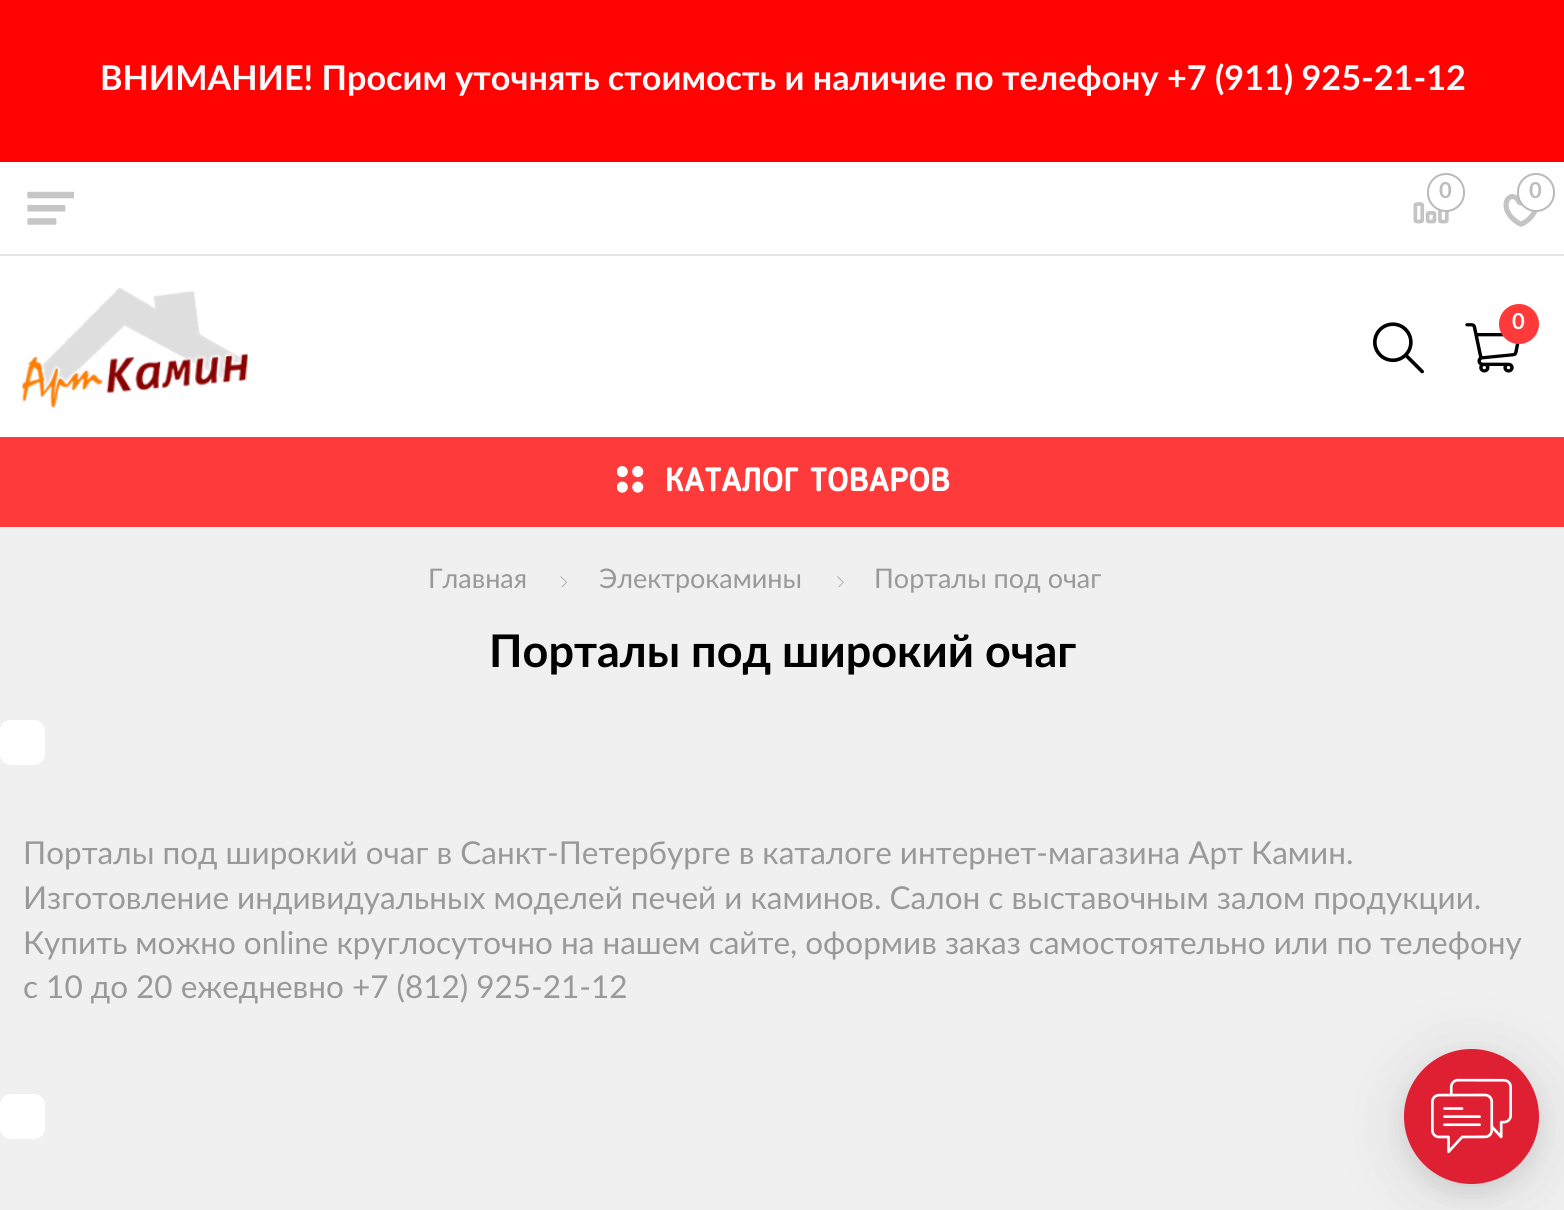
#include <cairo.h>
#include <math.h>
#include <stddef.h>

typedef struct { const char *family; double size; int italic, bold; unsigned color; } style_t;
static cairo_t *ctx;

static void ink(unsigned color) {
    cairo_set_source_rgb(ctx, (color >> 16) / 255.0, (color >> 8 & 255) / 255.0, (color & 255) / 255.0);
}

static void write(double x, double y, const char *s, const style_t *st) {
    cairo_select_font_face(ctx, st->family, st->italic ? CAIRO_FONT_SLANT_ITALIC : CAIRO_FONT_SLANT_NORMAL,
        st->bold ? CAIRO_FONT_WEIGHT_BOLD : CAIRO_FONT_WEIGHT_NORMAL);
    cairo_set_font_size(ctx, st->size);
    ink(st->color);
    cairo_move_to(ctx, x, y);
    cairo_show_text(ctx, s);
}

static void block(double x, double y, double w, double h, unsigned color) {
    ink(color);
    cairo_rectangle(ctx, x, y, w, h);
    cairo_fill(ctx);
}

static void round_path(double x, double y, double w, double h, double r) {
    cairo_new_sub_path(ctx);
    cairo_arc(ctx, x + w - r, y + h - r, r, 0, M_PI / 2);
    cairo_arc(ctx, x + r, y + h - r, r, M_PI / 2, M_PI);
    cairo_arc(ctx, x + r, y + r, r, M_PI, 1.5 * M_PI);
    cairo_arc(ctx, x + w - r, y + r, r, 1.5 * M_PI, 2 * M_PI);
    cairo_close_path(ctx);
}

static void blur_box(double x, double y, double w, double h, double r, double blur, double alpha) {
    cairo_push_group_with_content(ctx, CAIRO_CONTENT_ALPHA);
    cairo_set_operator(ctx, CAIRO_OPERATOR_SOURCE);
    for (int i = 15; i >= -15 && fmin(w, h) + blur * i / 3 > 0; i -= 2) {
        double e = blur * i / 6;
        cairo_set_source_rgba(ctx, 0, 0, 0, alpha * erfc((i - 1) / 8.5) / 2);
        round_path(x - e, y - e, w + 2 * e, h + 2 * e, fmax(0, fmin(r + e + blur * .6, fmin(w, h) / 2 + e)));
        cairo_fill(ctx);
    }
    cairo_pattern_t *soft = cairo_pop_group(ctx);
    cairo_mask(ctx, soft);
    cairo_pattern_destroy(soft);
}

static void paste(const char *path, double x, double y, double w, double h) {
    cairo_surface_t *image = cairo_image_surface_create_from_png(path);
    cairo_save(ctx);
    cairo_set_source_surface(ctx, image, x, y);
    cairo_rectangle(ctx, x, y, w, h);
    cairo_fill(ctx);
    cairo_restore(ctx);
    cairo_surface_destroy(image);
}

static const style_t s1 = {"Lato", 34.2, 0, 1, 0xfef9fa};
static const style_t s2 = {"Lato", 22, 0, 1, 0xbcbcbc};
static const style_t s3 = {"Lato", 22, 0, 1, 0xffffff};
static const style_t s4 = {"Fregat", 33.75, 0, 1, 0xffffff};
static const style_t s5 = {"Lato", 27, 0, 0, 0x999999};
static const style_t s6 = {"Lato", 45, 0, 1, 0x000000};
static const style_t s7 = {"Lato", 31.5, 0, 0, 0x999999};

int main(void) {
    cairo_surface_t *surface = cairo_image_surface_create(CAIRO_FORMAT_RGB24, 1564, 1210);
    ctx = cairo_create(surface);
    cairo_font_options_t *options = cairo_font_options_create();
    cairo_font_options_set_hint_metrics(options, CAIRO_HINT_METRICS_OFF);
    cairo_font_options_set_hint_style(options, CAIRO_HINT_STYLE_NONE);
    cairo_set_font_options(ctx, options);
    cairo_set_miter_limit(ctx, 4);
    ink(0xf0f0f0);
    cairo_paint(ctx);
    block(0, 0, 1564, 162, 0xff0303);
    write(100, 90, "ВНИМАНИЕ! Просим уточнять стоимость и наличие по телефону +7 (911) 925-21-12", &s1);
    block(0, 162, 1564, 275, 0xffffff);
    block(0, 254, 1564, 2, 0xe5e5e5);
    paste("pic1.png", 27, 191, 47, 34);
    paste("pic2.png", 1413, 202, 36, 22);
    ink(0xffffff);
    round_path(1428, 174, 36, 37, 18);
    cairo_fill_preserve(ctx);
    ink(0xbababa);
    cairo_stroke(ctx);
    write(1439, 198, "0", &s2);
    paste("pic3.png", 1503, 194, 35, 33);
    ink(0xffffff);
    round_path(1518, 174, 36, 37, 18);
    cairo_fill_preserve(ctx);
    ink(0xbababa);
    cairo_stroke(ctx);
    write(1529, 198, "0", &s2);
    paste("pic4.png", 22, 288, 226, 120);
    paste("pic5.png", 1373, 322, 51, 52);
    paste("pic6.png", 1465, 323, 55, 50);
    ink(0xfe3a3a);
    cairo_arc(ctx, 1519, 324, 20, 0, 2 * M_PI);
    cairo_fill(ctx);
    write(1512, 329, "0", &s3);
    block(0, 437, 1564, 90, 0xfe3a3a);
    paste("pic7.png", 617, 466, 27, 27);
    write(665, 491, "КАТАЛОГ ТОВАРОВ", &s4);
    write(428, 588, "Главная", &s5);
    paste("pic8.png", 560, 576, 7, 11);
    write(599, 588, "Электрокамины", &s5);
    paste("pic9.png", 837, 576, 7, 11);
    write(874, 588, "Порталы под очаг", &s5);
    write(489, 667, "Порталы под широкий очаг", &s6);
    ink(0xffffff);
    round_path(0, 720, 45, 45, 11);
    cairo_fill(ctx);
    write(23, 864, "Порталы под широкий очаг в Санкт-Петербурге в каталоге интернет-магазина Арт Камин.", &s7);
    write(23, 909, "Изготовление индивидуальных моделей печей и каминов. Салон с выставочным залом продукции.", &s7);
    write(23, 954, "Купить можно online круглосуточно на нашем сайте, оформив заказ самостоятельно или по телефону", &s7);
    write(23, 998, "с 10 до 20 ежедневно +7 (812) 925-21-12", &s7);
    ink(0xffffff);
    round_path(0, 1094, 45, 45, 11);
    cairo_fill(ctx);
    ink(0x000000);
    blur_box(1404, 1058, 135, 135, 67.5, 34, 0.1);
    blur_box(1404, 1058, 135, 135, 67.5, 11, 0.08);
    ink(0xdf1f32);
    cairo_arc(ctx, 1471.5, 1116.5, 67.5, 0, 2 * M_PI);
    cairo_fill(ctx);
    paste("pic10.png", 1431, 1078, 81, 76);
    cairo_surface_write_to_png(surface, "screenshot.png");
    cairo_font_options_destroy(options);
    cairo_destroy(ctx);
    cairo_surface_destroy(surface);
    return 0;
}
